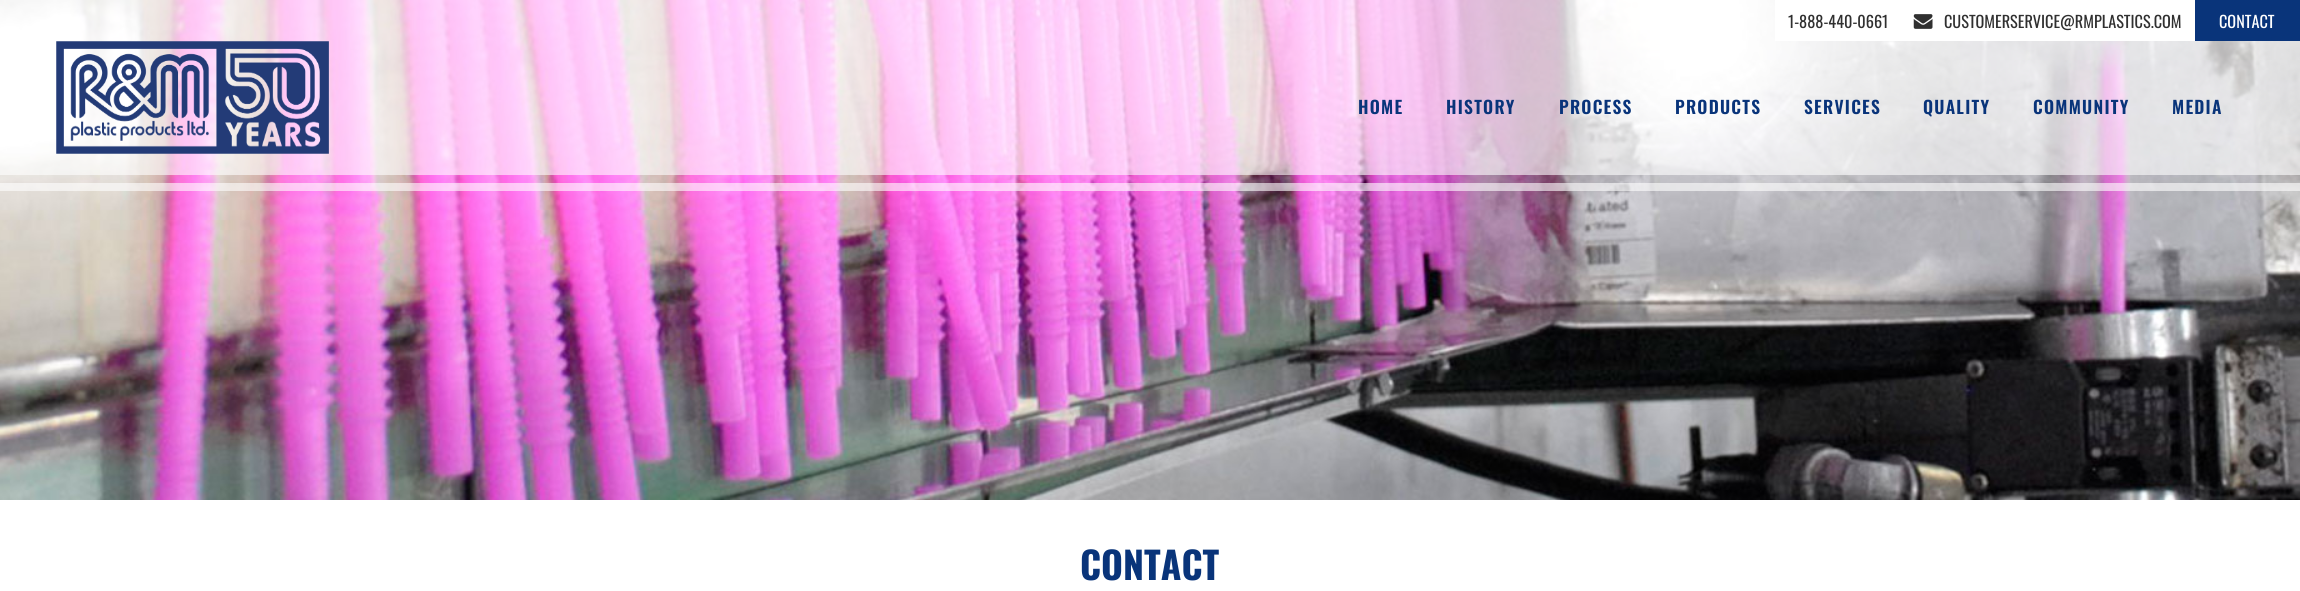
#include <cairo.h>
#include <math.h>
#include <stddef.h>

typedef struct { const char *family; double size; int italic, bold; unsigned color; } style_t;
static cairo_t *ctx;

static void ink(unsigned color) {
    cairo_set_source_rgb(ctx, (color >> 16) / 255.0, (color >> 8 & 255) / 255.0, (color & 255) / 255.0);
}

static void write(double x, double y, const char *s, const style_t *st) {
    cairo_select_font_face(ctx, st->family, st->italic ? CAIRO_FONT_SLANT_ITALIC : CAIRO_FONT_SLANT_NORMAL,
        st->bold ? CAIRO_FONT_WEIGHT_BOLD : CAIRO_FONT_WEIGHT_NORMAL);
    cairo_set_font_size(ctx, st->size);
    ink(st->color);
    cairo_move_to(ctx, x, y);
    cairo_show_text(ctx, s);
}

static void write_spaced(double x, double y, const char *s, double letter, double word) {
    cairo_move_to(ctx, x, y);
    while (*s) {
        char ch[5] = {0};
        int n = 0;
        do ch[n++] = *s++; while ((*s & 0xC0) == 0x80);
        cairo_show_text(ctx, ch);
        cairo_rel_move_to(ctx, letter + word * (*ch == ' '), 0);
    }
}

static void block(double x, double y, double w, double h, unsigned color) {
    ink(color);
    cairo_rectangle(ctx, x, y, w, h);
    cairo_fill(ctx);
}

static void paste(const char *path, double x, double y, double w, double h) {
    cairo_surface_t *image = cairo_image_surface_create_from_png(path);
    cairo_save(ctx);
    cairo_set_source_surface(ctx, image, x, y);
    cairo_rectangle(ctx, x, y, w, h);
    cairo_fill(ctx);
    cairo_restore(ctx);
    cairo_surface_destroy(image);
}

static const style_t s1 = {"Oswald", 16.25, 0, 0, 0x303030};
static const style_t s2 = {"Oswald", 16.25, 0, 0, 0xffffff};
static const style_t s3 = {"Oswald", 37.5, 0, 1, 0x09347a};

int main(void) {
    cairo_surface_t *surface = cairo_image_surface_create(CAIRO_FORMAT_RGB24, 2300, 591);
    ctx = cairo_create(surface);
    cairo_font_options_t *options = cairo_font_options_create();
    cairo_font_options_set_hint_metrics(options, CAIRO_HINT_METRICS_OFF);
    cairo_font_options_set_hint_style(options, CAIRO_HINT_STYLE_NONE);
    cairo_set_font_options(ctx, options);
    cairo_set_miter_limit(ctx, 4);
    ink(0xffffff);
    cairo_paint(ctx);
    paste("pic3.png", 0, 0, 2300, 500);
    cairo_set_source_rgba(ctx, 1, 1, 1, 0.6);
    cairo_rectangle(ctx, 0, 166, 2300, 9);
    cairo_fill(ctx);
    cairo_rectangle(ctx, 0, 183, 2300, 8);
    cairo_fill(ctx);
    cairo_rectangle(ctx, 0, 0, 1775, 41);
    cairo_fill(ctx);
    block(1775, 0, 420, 41, 0xffffff);
    write(1788, 28, "1-888-440-0661", &s1);
    paste("pic1.png", 1913, 14, 20, 15);
    write(1944, 28, "CUSTOMERSERVICE@RMPLASTICS.COM", &s1);
    block(2195, 0, 105, 41, 0x09347a);
    write(2219, 28, "CONTACT", &s2);
    cairo_set_source_rgba(ctx, 1, 1, 1, 0.6);
    cairo_rectangle(ctx, 0, 41, 2300, 125);
    cairo_fill(ctx);
    paste("pic2.png", 56, 41, 273, 113);
    cairo_select_font_face(ctx, "Oswald SemiBold", CAIRO_FONT_SLANT_NORMAL, CAIRO_FONT_WEIGHT_NORMAL);
    cairo_set_font_size(ctx, 17.5);
    ink(0x09347a);
    write_spaced(1358, 114, "HOME", 1.25, 0);
    write_spaced(1446, 114, "HISTORY", 1.25, 0);
    write_spaced(1559, 114, "PROCESS", 1.25, 0);
    write_spaced(1675, 114, "PRODUCTS", 1.25, 0);
    write_spaced(1804, 114, "SERVICES", 1.25, 0);
    write_spaced(1923, 114, "QUALITY", 1.25, 0);
    write_spaced(2033, 114, "COMMUNITY", 1.25, 0);
    write_spaced(2172, 114, "MEDIA", 1.25, 0);
    write(1080, 580, "CONTACT", &s3);
    cairo_surface_write_to_png(surface, "screenshot.png");
    cairo_font_options_destroy(options);
    cairo_destroy(ctx);
    cairo_surface_destroy(surface);
    return 0;
}
